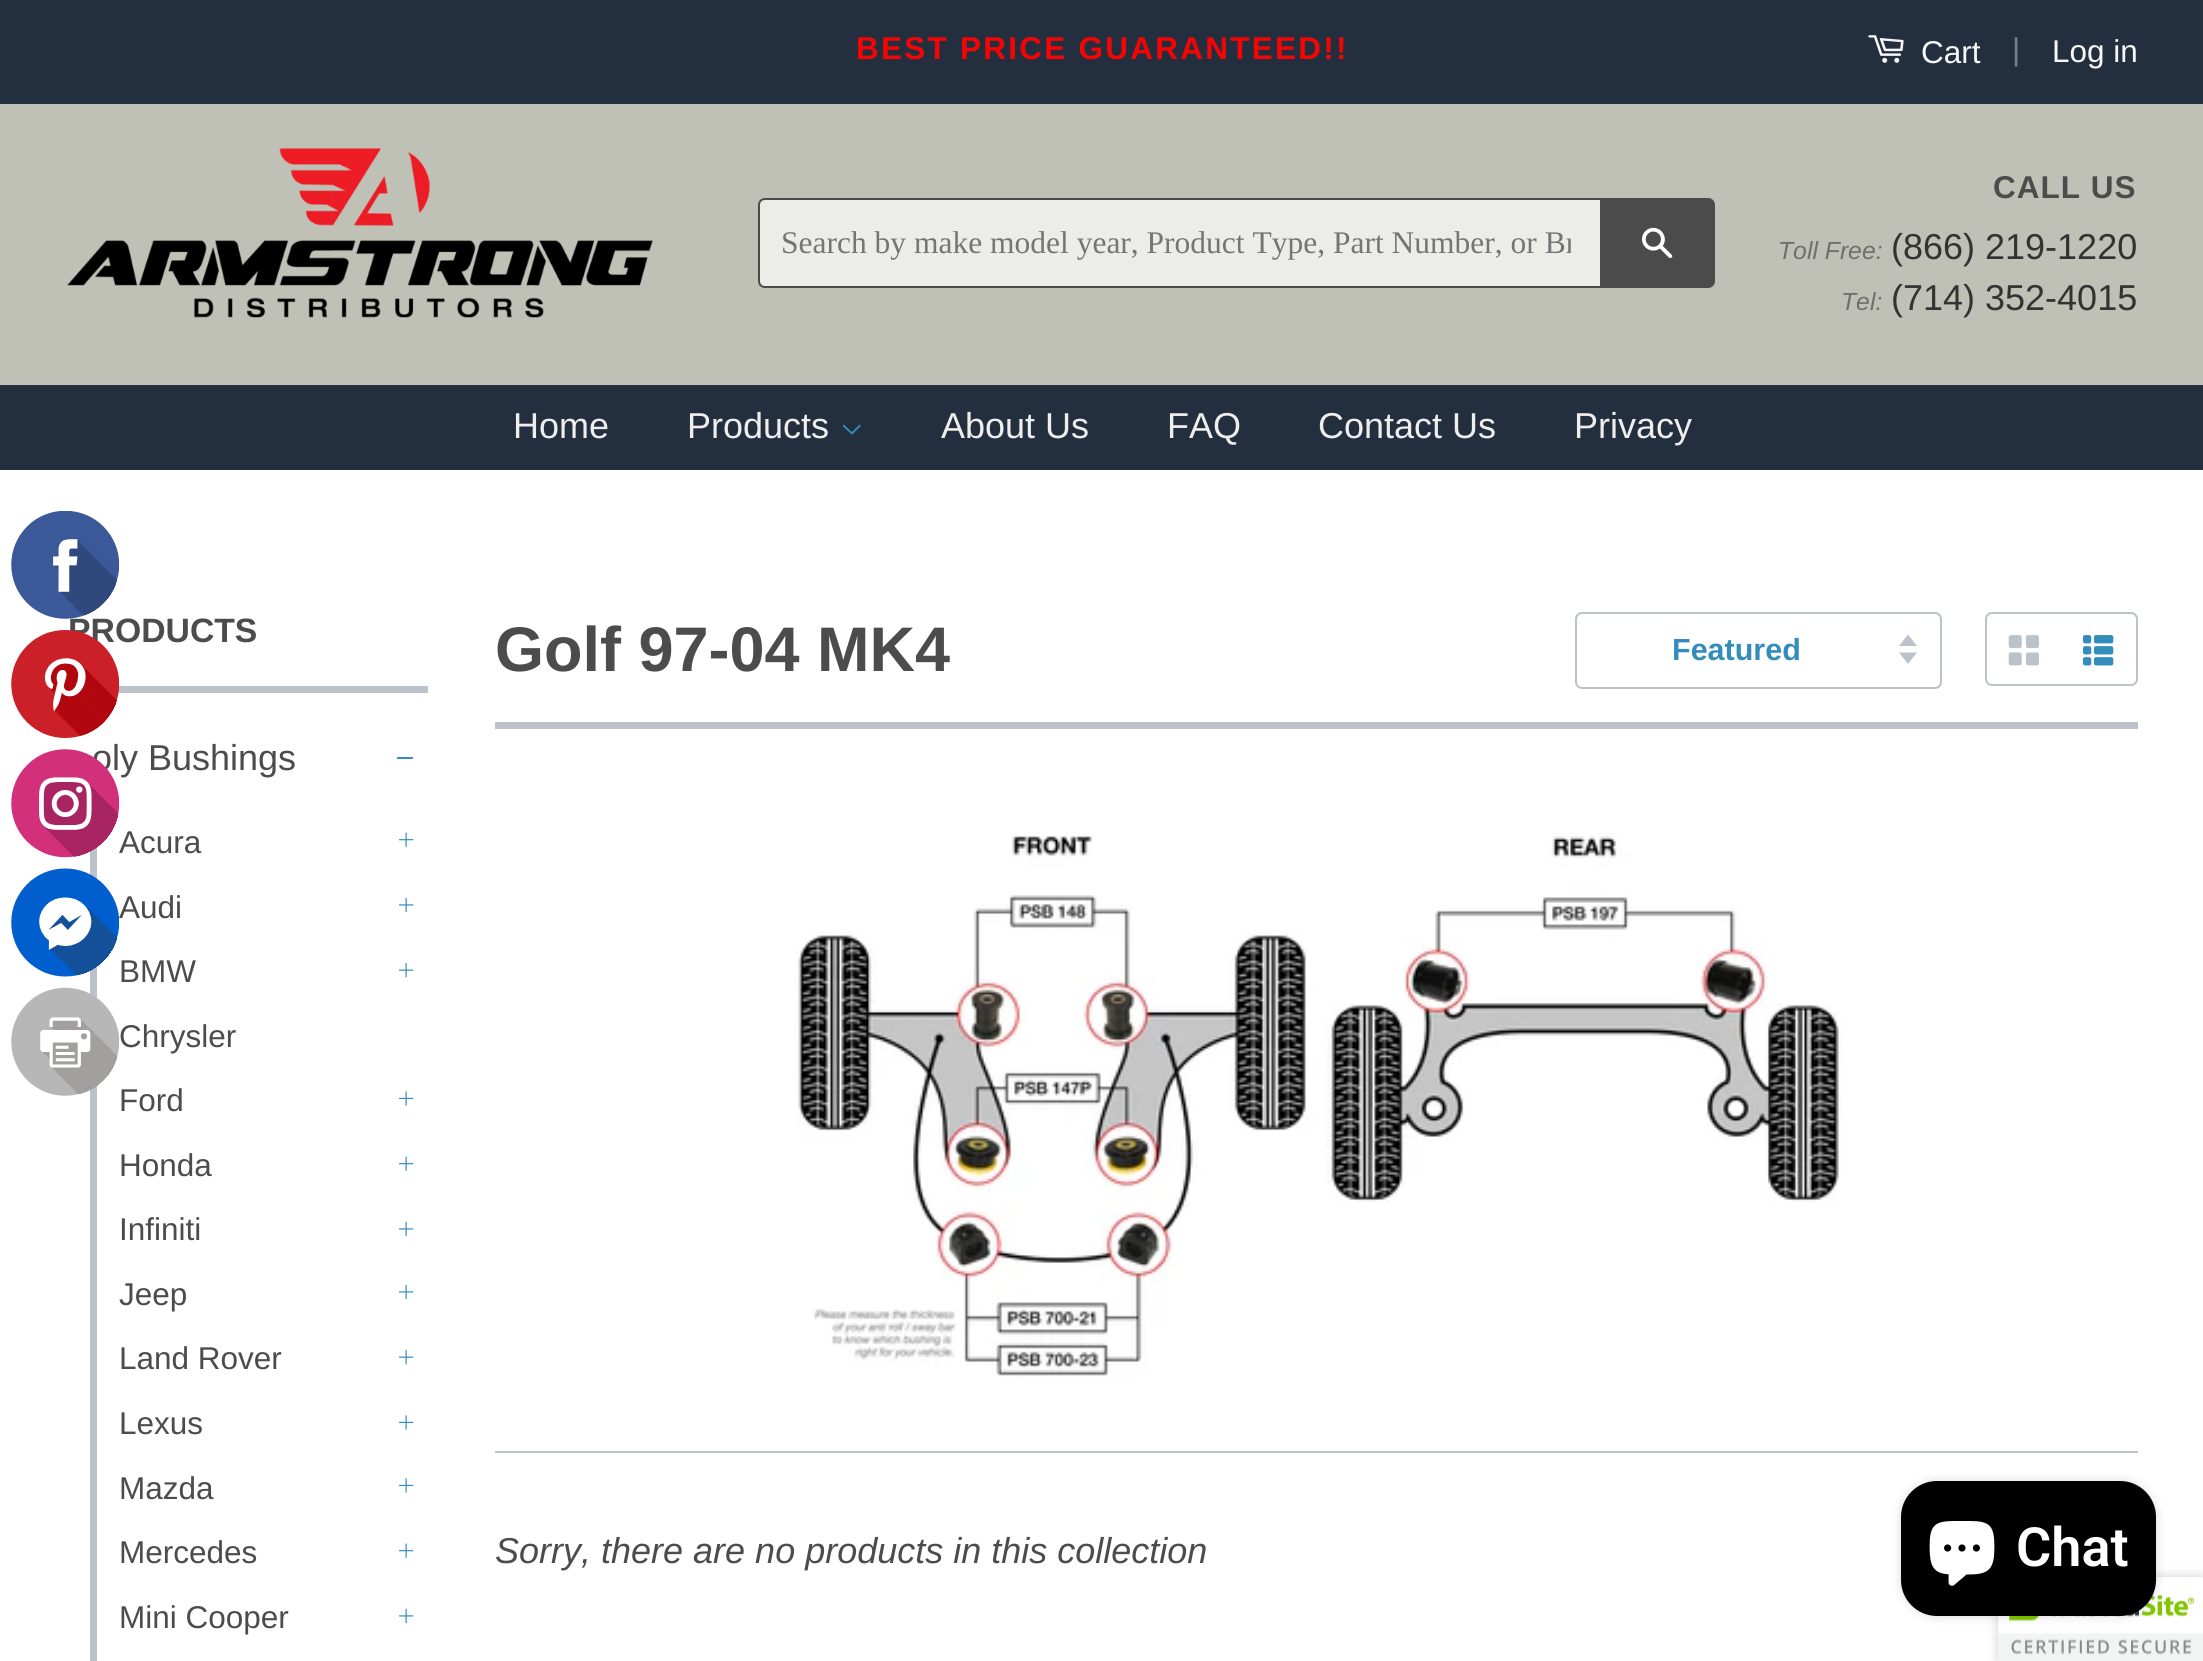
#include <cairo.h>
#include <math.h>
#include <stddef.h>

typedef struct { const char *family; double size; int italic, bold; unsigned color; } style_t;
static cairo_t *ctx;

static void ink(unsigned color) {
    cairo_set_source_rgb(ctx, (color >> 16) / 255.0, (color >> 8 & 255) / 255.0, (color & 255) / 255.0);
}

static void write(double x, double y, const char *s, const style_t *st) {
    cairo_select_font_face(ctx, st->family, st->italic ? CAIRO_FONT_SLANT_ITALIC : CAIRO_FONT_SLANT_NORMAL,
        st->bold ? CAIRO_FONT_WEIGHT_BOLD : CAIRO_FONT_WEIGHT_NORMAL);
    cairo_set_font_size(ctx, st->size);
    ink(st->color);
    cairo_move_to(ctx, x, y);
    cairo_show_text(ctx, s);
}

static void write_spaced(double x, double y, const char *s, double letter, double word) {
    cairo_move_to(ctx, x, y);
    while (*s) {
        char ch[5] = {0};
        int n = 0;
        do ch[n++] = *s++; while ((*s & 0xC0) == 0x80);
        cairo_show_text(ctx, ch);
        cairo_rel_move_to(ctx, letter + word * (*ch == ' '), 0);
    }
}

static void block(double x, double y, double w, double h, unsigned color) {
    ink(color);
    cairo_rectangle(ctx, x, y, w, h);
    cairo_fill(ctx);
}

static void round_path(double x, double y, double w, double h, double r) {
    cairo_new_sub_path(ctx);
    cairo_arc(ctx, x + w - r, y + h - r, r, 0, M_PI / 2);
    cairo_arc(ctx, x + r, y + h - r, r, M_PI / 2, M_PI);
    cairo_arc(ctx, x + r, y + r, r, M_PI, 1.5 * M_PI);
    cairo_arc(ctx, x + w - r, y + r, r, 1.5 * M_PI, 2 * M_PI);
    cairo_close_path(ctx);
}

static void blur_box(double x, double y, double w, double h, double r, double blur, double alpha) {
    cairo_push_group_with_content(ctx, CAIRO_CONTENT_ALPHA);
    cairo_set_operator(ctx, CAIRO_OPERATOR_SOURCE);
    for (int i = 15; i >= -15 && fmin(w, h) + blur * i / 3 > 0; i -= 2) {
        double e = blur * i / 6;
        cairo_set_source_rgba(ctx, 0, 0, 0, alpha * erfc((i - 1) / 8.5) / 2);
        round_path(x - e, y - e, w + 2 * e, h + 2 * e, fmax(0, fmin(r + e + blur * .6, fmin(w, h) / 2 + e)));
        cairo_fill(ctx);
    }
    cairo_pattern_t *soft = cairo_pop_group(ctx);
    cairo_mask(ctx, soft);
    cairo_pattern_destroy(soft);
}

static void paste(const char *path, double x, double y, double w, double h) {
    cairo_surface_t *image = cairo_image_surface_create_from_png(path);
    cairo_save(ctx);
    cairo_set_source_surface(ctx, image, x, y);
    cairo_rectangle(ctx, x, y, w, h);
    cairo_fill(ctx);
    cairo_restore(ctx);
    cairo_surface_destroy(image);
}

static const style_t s1 = {"Liberation Sans", 31.5, 0, 0, 0xf7f7f7};
static const style_t s2 = {"Liberation Sans", 31.5, 0, 0, 0x787f88};
static const style_t s3 = {"Liberation Serif", 31.5, 0, 0, 0x757575};
static const style_t s4 = {"Liberation Sans", 24.75, 1, 0, 0x6f6f6c};
static const style_t s5 = {"Liberation Sans", 36, 0, 0, 0x333333};
static const style_t s6 = {"Liberation Sans", 36, 0, 0, 0xf0eded};
static const style_t s7 = {"Liberation Sans", 33.75, 0, 1, 0x4c4c4c};
static const style_t s8 = {"Liberation Sans", 36, 0, 0, 0x4c4c4c};
static const style_t s9 = {"Liberation Sans", 31.5, 0, 0, 0x4c4c4c};
static const style_t s10 = {"Liberation Sans", 63, 0, 1, 0x4c4c4c};
static const style_t s11 = {"Liberation Sans", 30.5, 0, 1, 0x338dbc};
static const style_t s12 = {"Liberation Sans", 36, 1, 0, 0x4c4c4c};
static const style_t s13 = {"Roboto SemiBold", 54, 0, 0, 0xffffff};

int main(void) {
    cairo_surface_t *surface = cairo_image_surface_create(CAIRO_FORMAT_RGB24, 2203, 1661);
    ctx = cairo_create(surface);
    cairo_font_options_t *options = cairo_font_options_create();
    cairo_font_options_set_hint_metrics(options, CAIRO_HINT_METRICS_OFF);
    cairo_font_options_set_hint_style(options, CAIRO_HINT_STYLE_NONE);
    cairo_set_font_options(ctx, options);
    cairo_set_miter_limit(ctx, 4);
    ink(0xffffff);
    cairo_paint(ctx);
    block(0, 0, 2203, 104, 0x232f3e);
    cairo_select_font_face(ctx, "Liberation Sans", CAIRO_FONT_SLANT_NORMAL, CAIRO_FONT_WEIGHT_BOLD);
    cairo_set_font_size(ctx, 31.5);
    ink(0xf50404);
    write_spaced(856, 59, "BEST PRICE GUARANTEED!!", 2.25, 0);
    paste("pic1.png", 1868, 35, 36, 28);
    write(1921, 63, "Cart", &s1);
    write(2012, 60, "|", &s2);
    write(2052, 62, "Log in", &s1);
    block(0, 104, 2203, 281, 0xc0c1b6);
    paste("pic2.png", 67, 148, 586, 170);
    ink(0xecece9);
    cairo_new_path(ctx);
    cairo_move_to(ctx, 765, 199);
    cairo_line_to(ctx, 1601, 199);
    cairo_line_to(ctx, 1601, 287);
    cairo_line_to(ctx, 765, 287);
    cairo_curve_to(ctx, 761.5, 287, 759, 284.5, 759, 281);
    cairo_line_to(ctx, 759, 205);
    cairo_curve_to(ctx, 759, 201.5, 761.5, 199, 765, 199);
    cairo_close_path(ctx);
    cairo_fill_preserve(ctx);
    ink(0x4b4b4b);
    cairo_stroke(ctx);
    cairo_save(ctx);
    cairo_rectangle(ctx, 781, 225, 790, 36);
    cairo_clip(ctx);
    write(781, 253, "Search by make model year, Product Type, Part Number, or Br", &s3);
    cairo_restore(ctx);
    cairo_new_path(ctx);
    cairo_move_to(ctx, 1602, 198);
    cairo_line_to(ctx, 1708, 198);
    cairo_curve_to(ctx, 1712, 198, 1715, 201, 1715, 205);
    cairo_line_to(ctx, 1715, 281);
    cairo_curve_to(ctx, 1715, 285, 1712, 288, 1708, 288);
    cairo_line_to(ctx, 1602, 288);
    cairo_close_path(ctx);
    cairo_fill(ctx);
    paste("pic3.png", 1642, 227, 31, 32);
    cairo_select_font_face(ctx, "Liberation Sans", CAIRO_FONT_SLANT_NORMAL, CAIRO_FONT_WEIGHT_BOLD);
    ink(0x4c4c4c);
    write_spaced(1993, 198, "CALL US", 1, 0);
    write(1778, 259, "Toll Free:", &s4);
    write(1891, 259, "(866) 219-1220", &s5);
    write(1841, 310, "Tel:", &s4);
    write(1891, 310, "(714) 352-4015", &s5);
    block(0, 385, 2203, 85, 0x232f3e);
    write(513, 438, "Home", &s6);
    write(687, 438, "Products", &s6);
    paste("pic4.png", 842, 424, 19, 11);
    write(941, 438, "About Us", &s6);
    write(1167, 438, "FAQ", &s6);
    write(1318, 438, "Contact Us", &s6);
    write(1574, 438, "Privacy", &s6);
    block(118, 686, 310, 7, 0xbcc2ca);
    write(68, 642, "PRODUCTS", &s7);
    write(92, 770, "oly Bushings", &s8);
    block(90, 847, 7, 814, 0xbcc2ca);
    write(119, 853, "Acura", &s9);
    write(119, 918, "Audi", &s9);
    paste("pic5.png", 11, 511, 109, 585);
    block(397, 757, 16, 2, 0x338dbc);
    paste("pic6.png", 399, 832, 15, 15);
    paste("pic7.png", 399, 897, 15, 16);
    write(119, 982, "BMW", &s9);
    paste("pic8.png", 399, 963, 15, 15);
    write(119, 1047, "Chrysler", &s9);
    write(119, 1111, "Ford", &s9);
    paste("pic9.png", 399, 1091, 15, 15);
    write(119, 1176, "Honda", &s9);
    paste("pic6.png", 399, 1156, 15, 15);
    write(119, 1240, "Infiniti", &s9);
    paste("pic7.png", 399, 1221, 15, 16);
    write(119, 1305, "Jeep", &s9);
    paste("pic7.png", 399, 1284, 15, 16);
    write(119, 1369, "Land Rover", &s9);
    paste("pic8.png", 399, 1350, 15, 15);
    write(119, 1434, "Lexus", &s9);
    paste("pic9.png", 399, 1415, 15, 15);
    write(119, 1499, "Mazda", &s9);
    paste("pic9.png", 399, 1478, 15, 15);
    write(119, 1563, "Mercedes", &s9);
    paste("pic6.png", 399, 1543, 15, 15);
    write(119, 1628, "Mini Cooper", &s9);
    paste("pic7.png", 399, 1608, 15, 16);
    block(495, 722, 1643, 7, 0xbcc2ca);
    write(495, 671, "Golf 97-04 MK4", &s10);
    ink(0xbcc2ca);
    cairo_new_path(ctx);
    cairo_move_to(ctx, 1899, 652.5);
    cairo_line_to(ctx, 1908, 664);
    cairo_line_to(ctx, 1917, 652.5);
    cairo_close_path(ctx);
    cairo_move_to(ctx, 1908, 634.5);
    cairo_line_to(ctx, 1899, 646);
    cairo_line_to(ctx, 1917, 646);
    cairo_close_path(ctx);
    cairo_fill(ctx);
    round_path(1576, 613, 365, 75, 6);
    cairo_stroke(ctx);
    write(1672, 660, "Featured", &s11);
    round_path(1986, 613, 151, 72, 6);
    ink(0xbcc2ca);
    cairo_stroke(ctx);
    paste("pic10.png", 2008, 635, 31, 31);
    paste("pic11.png", 2082, 635, 32, 31);
    paste("pic12.png", 795, 833, 1047, 548);
    block(495, 1451, 1643, 2, 0xbcc2ca);
    write(495, 1563, "Sorry, there are no products in this collection", &s12);
    ink(0x000000);
    blur_box(1998, 1577, 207, 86, 5, 5.5, 0.2);
    block(2156, 1577, 47, 2, 0xffffff);
    paste("pic14.png", 1998, 1577, 205, 84);
    ink(0x000000);
    blur_box(1901, 1481, 255, 135, 36, 5.5, 0.15);
    ink(0x000000);
    round_path(1901, 1481, 255, 135, 36);
    cairo_fill(ctx);
    paste("pic13.png", 1929, 1521, 66, 65);
    write(2016, 1566, "Chat", &s13);
    cairo_surface_write_to_png(surface, "screenshot.png");
    cairo_font_options_destroy(options);
    cairo_destroy(ctx);
    cairo_surface_destroy(surface);
    return 0;
}
